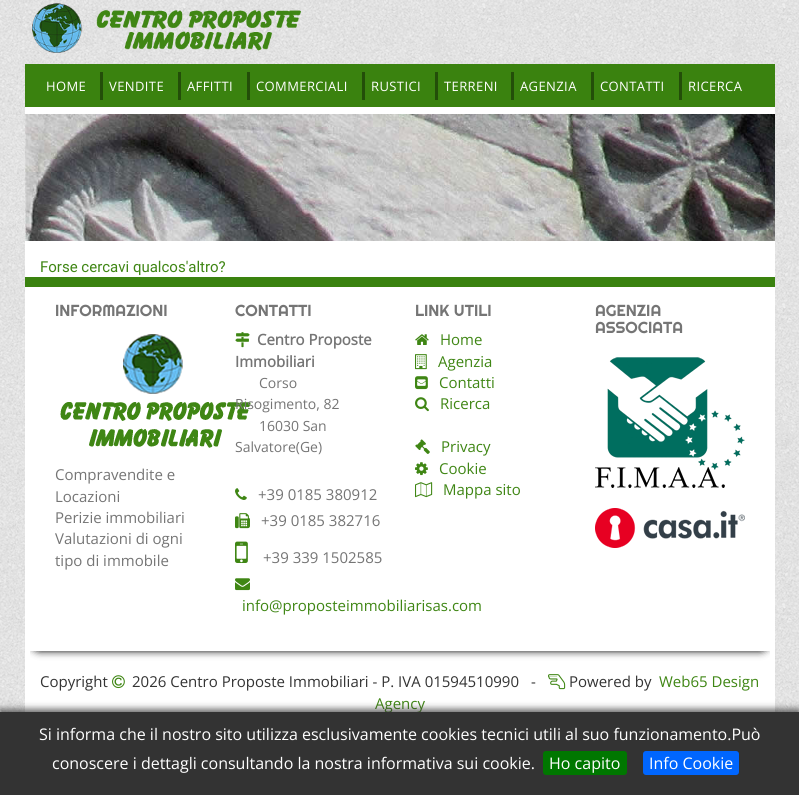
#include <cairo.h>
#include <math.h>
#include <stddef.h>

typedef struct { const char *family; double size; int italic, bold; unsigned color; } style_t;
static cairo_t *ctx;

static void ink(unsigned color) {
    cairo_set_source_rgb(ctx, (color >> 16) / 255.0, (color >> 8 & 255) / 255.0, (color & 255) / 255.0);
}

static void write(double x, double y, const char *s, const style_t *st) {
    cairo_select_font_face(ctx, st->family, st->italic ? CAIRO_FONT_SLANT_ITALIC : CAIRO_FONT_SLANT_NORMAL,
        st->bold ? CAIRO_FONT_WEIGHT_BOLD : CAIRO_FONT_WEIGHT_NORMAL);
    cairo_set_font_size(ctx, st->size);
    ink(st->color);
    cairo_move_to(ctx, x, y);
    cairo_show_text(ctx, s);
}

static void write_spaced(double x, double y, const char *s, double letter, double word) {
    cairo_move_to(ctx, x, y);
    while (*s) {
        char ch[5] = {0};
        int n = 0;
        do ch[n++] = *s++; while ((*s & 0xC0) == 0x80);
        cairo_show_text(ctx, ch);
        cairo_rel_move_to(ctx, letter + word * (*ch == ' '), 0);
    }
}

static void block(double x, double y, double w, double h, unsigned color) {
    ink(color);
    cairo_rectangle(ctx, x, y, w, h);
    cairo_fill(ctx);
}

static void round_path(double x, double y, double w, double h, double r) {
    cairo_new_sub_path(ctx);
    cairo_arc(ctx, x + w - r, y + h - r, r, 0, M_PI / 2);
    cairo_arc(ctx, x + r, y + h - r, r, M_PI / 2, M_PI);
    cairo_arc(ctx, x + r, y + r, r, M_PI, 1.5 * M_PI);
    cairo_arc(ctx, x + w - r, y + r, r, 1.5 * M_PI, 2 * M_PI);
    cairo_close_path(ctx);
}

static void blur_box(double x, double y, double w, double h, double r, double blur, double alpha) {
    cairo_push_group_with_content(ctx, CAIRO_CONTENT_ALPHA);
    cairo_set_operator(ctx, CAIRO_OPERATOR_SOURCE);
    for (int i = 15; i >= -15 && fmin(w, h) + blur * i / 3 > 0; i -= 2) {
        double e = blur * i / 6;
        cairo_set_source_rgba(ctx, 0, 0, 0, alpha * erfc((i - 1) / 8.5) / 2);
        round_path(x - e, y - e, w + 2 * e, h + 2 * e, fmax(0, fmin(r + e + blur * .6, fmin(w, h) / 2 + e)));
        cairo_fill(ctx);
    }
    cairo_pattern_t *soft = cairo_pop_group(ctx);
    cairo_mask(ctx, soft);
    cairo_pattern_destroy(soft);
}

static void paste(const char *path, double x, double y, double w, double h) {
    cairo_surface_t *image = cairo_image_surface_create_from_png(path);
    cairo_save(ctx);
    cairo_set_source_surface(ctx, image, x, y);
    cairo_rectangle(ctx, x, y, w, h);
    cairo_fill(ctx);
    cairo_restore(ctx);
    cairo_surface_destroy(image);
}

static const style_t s1 = {"Roboto", 15, 0, 0, 0x3f8614};
static const style_t s2 = {"Righteous", 16, 0, 0, 0x757575};
static const style_t s3 = {"Open Sans", 15, 0, 0, 0x757575};
static const style_t s4 = {"Open Sans", 15, 0, 1, 0x757575};
static const style_t s5 = {"Open Sans", 14, 0, 0, 0x757575};
static const style_t s6 = {"Open Sans", 15, 0, 0, 0x3f8614};
static const style_t s7 = {"Open Sans", 15, 0, 0, 0x333333};
static const style_t s8 = {"Open Sans", 16, 0, 0, 0xffffff};

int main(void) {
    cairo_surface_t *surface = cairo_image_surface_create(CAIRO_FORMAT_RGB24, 799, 795);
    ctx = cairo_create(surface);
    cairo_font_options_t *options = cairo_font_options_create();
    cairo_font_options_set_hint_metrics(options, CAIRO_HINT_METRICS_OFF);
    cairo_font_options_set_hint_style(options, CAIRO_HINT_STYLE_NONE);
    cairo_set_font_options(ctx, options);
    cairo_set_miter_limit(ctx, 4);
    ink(0xffffff);
    cairo_paint(ctx);
    paste("pic1.png", 0, 0, 799, 712);
    paste("pic2.png", 32, 3, 269, 50);
    block(25, 107, 750, 605, 0xffffff);
    block(25, 64, 750, 43, 0x3a820f);
    cairo_select_font_face(ctx, "Open Sans", CAIRO_FONT_SLANT_NORMAL, CAIRO_FONT_WEIGHT_NORMAL);
    cairo_set_font_size(ctx, 13);
    ink(0xffffff);
    write_spaced(46, 91, "HOME", 0.4, 0);
    block(100, 72, 3, 28, 0x234e09);
    ink(0xffffff);
    write_spaced(109, 91, "VENDITE", 0.4, 0);
    block(178, 72, 3, 28, 0x234e09);
    ink(0xffffff);
    write_spaced(187, 91, "AFFITTI", 0.4, 0);
    block(247, 72, 3, 28, 0x234e09);
    ink(0xffffff);
    write_spaced(256, 91, "COMMERCIALI", 0.4, 0);
    block(362, 72, 3, 28, 0x234e09);
    ink(0xffffff);
    write_spaced(371, 91, "RUSTICI", 0.4, 0);
    block(435, 72, 3, 28, 0x234e09);
    ink(0xffffff);
    write_spaced(444, 91, "TERRENI", 0.4, 0);
    block(511, 72, 3, 28, 0x234e09);
    ink(0xffffff);
    write_spaced(520, 91, "AGENZIA", 0.4, 0);
    block(591, 72, 3, 28, 0x234e09);
    ink(0xffffff);
    write_spaced(600, 91, "CONTATTI", 0.4, 0);
    block(679, 72, 3, 28, 0x234e09);
    ink(0xffffff);
    write_spaced(688, 91, "RICERCA", 0.4, 0);
    paste("pic3.png", 25, 114, 750, 127);
    write(40, 272, "Forse cercavi qualcos'altro?", &s1);
    block(25, 277, 750, 10, 0x3a820f);
    write(55, 316, "INFORMAZIONI", &s2);
    paste("pic4.png", 60, 334, 191, 114);
    write(55, 480, "Compravendite e", &s3);
    write(55, 502, "Locazioni", &s3);
    write(55, 523, "Perizie immobiliari", &s3);
    write(55, 544, "Valutazioni di ogni", &s3);
    write(55, 566, "tipo di immobile", &s3);
    write(235, 316, "CONTATTI", &s2);
    paste("pic5.png", 235, 332, 15, 16);
    write(257, 345, "Centro Proposte", &s4);
    write(235, 367, "Immobiliari", &s4);
    write(259, 388, "Corso", &s5);
    write(235, 409, "Risogimento, 82", &s5);
    write(259, 431, "16030 San", &s5);
    write(235, 452, "Salvatore(Ge)", &s5);
    paste("pic6.png", 235, 488, 12, 12);
    write(258, 500, "+39 0185 380912", &s3);
    paste("pic7.png", 235, 513, 15, 16);
    write(261, 526, "+39 0185 382716", &s3);
    paste("pic8.png", 235, 541, 13, 22);
    write(263, 563, "+39 339 1502585", &s3);
    paste("pic9.png", 235, 578, 15, 13);
    write(242, 611, "info@proposteimmobiliarisas.com", &s6);
    write(415, 316, "LINK UTILI", &s2);
    paste("pic10.png", 415, 334, 14, 11);
    write(440, 345, "Home", &s6);
    paste("pic11.png", 415, 354, 12, 16);
    write(438, 367, "Agenzia", &s6);
    paste("pic12.png", 415, 376, 13, 14);
    write(439, 388, "Contatti", &s6);
    paste("pic13.png", 415, 397, 14, 15);
    write(440, 409, "Ricerca", &s6);
    paste("pic14.png", 415, 439, 15, 15);
    write(441, 452, "Privacy", &s6);
    paste("pic15.png", 415, 462, 13, 14);
    write(439, 474, "Cookie", &s6);
    paste("pic16.png", 415, 482, 18, 16);
    write(443, 495, "Mappa sito", &s6);
    write(595, 316, "AGENZIA", &s2);
    write(595, 333, "ASSOCIATA", &s2);
    paste("pic17.png", 595, 357, 150, 131);
    paste("pic18.png", 595, 508, 150, 40);
    cairo_save(ctx);
    cairo_rectangle(ctx, 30, 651, 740, 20);
    cairo_clip(ctx);
    ink(0x000000);
    blur_box(30, 626, 740, 25, 12, 4, 1);
    cairo_restore(ctx);
    write(40, 687, "Copyright", &s7);
    paste("pic19.png", 112, 675, 13, 14);
    write(132, 687, "2026 Centro Proposte Immobiliari - P. IVA 01594510990", &s7);
    write(531, 687, "-", &s7);
    paste("pic20.png", 548, 674, 18, 16);
    write(569, 687, "Powered by", &s7);
    write(659, 687, "Web65 Design", &s6);
    write(375, 709, "Agency", &s6);
    ink(0x323232);
    blur_box(0, 709, 799, 83, 0, 3.5, 0.75);
    block(0, 712, 799, 83, 0x333333);
    write(39, 740, "Si informa che il nostro sito utilizza esclusivamente cookies tecnici utili al suo funzionamento.Può", &s8);
    write(52, 769, "conoscere i dettagli consultando la nostra informativa sui cookie.", &s8);
    ink(0x007700);
    round_path(543, 751, 84, 24, 3);
    cairo_fill(ctx);
    write(549, 769, "Ho capito", &s8);
    ink(0x0066ff);
    round_path(643, 751, 96, 24, 3);
    cairo_fill(ctx);
    write(649, 769, "Info Cookie", &s8);
    cairo_surface_write_to_png(surface, "screenshot.png");
    cairo_font_options_destroy(options);
    cairo_destroy(ctx);
    cairo_surface_destroy(surface);
    return 0;
}
